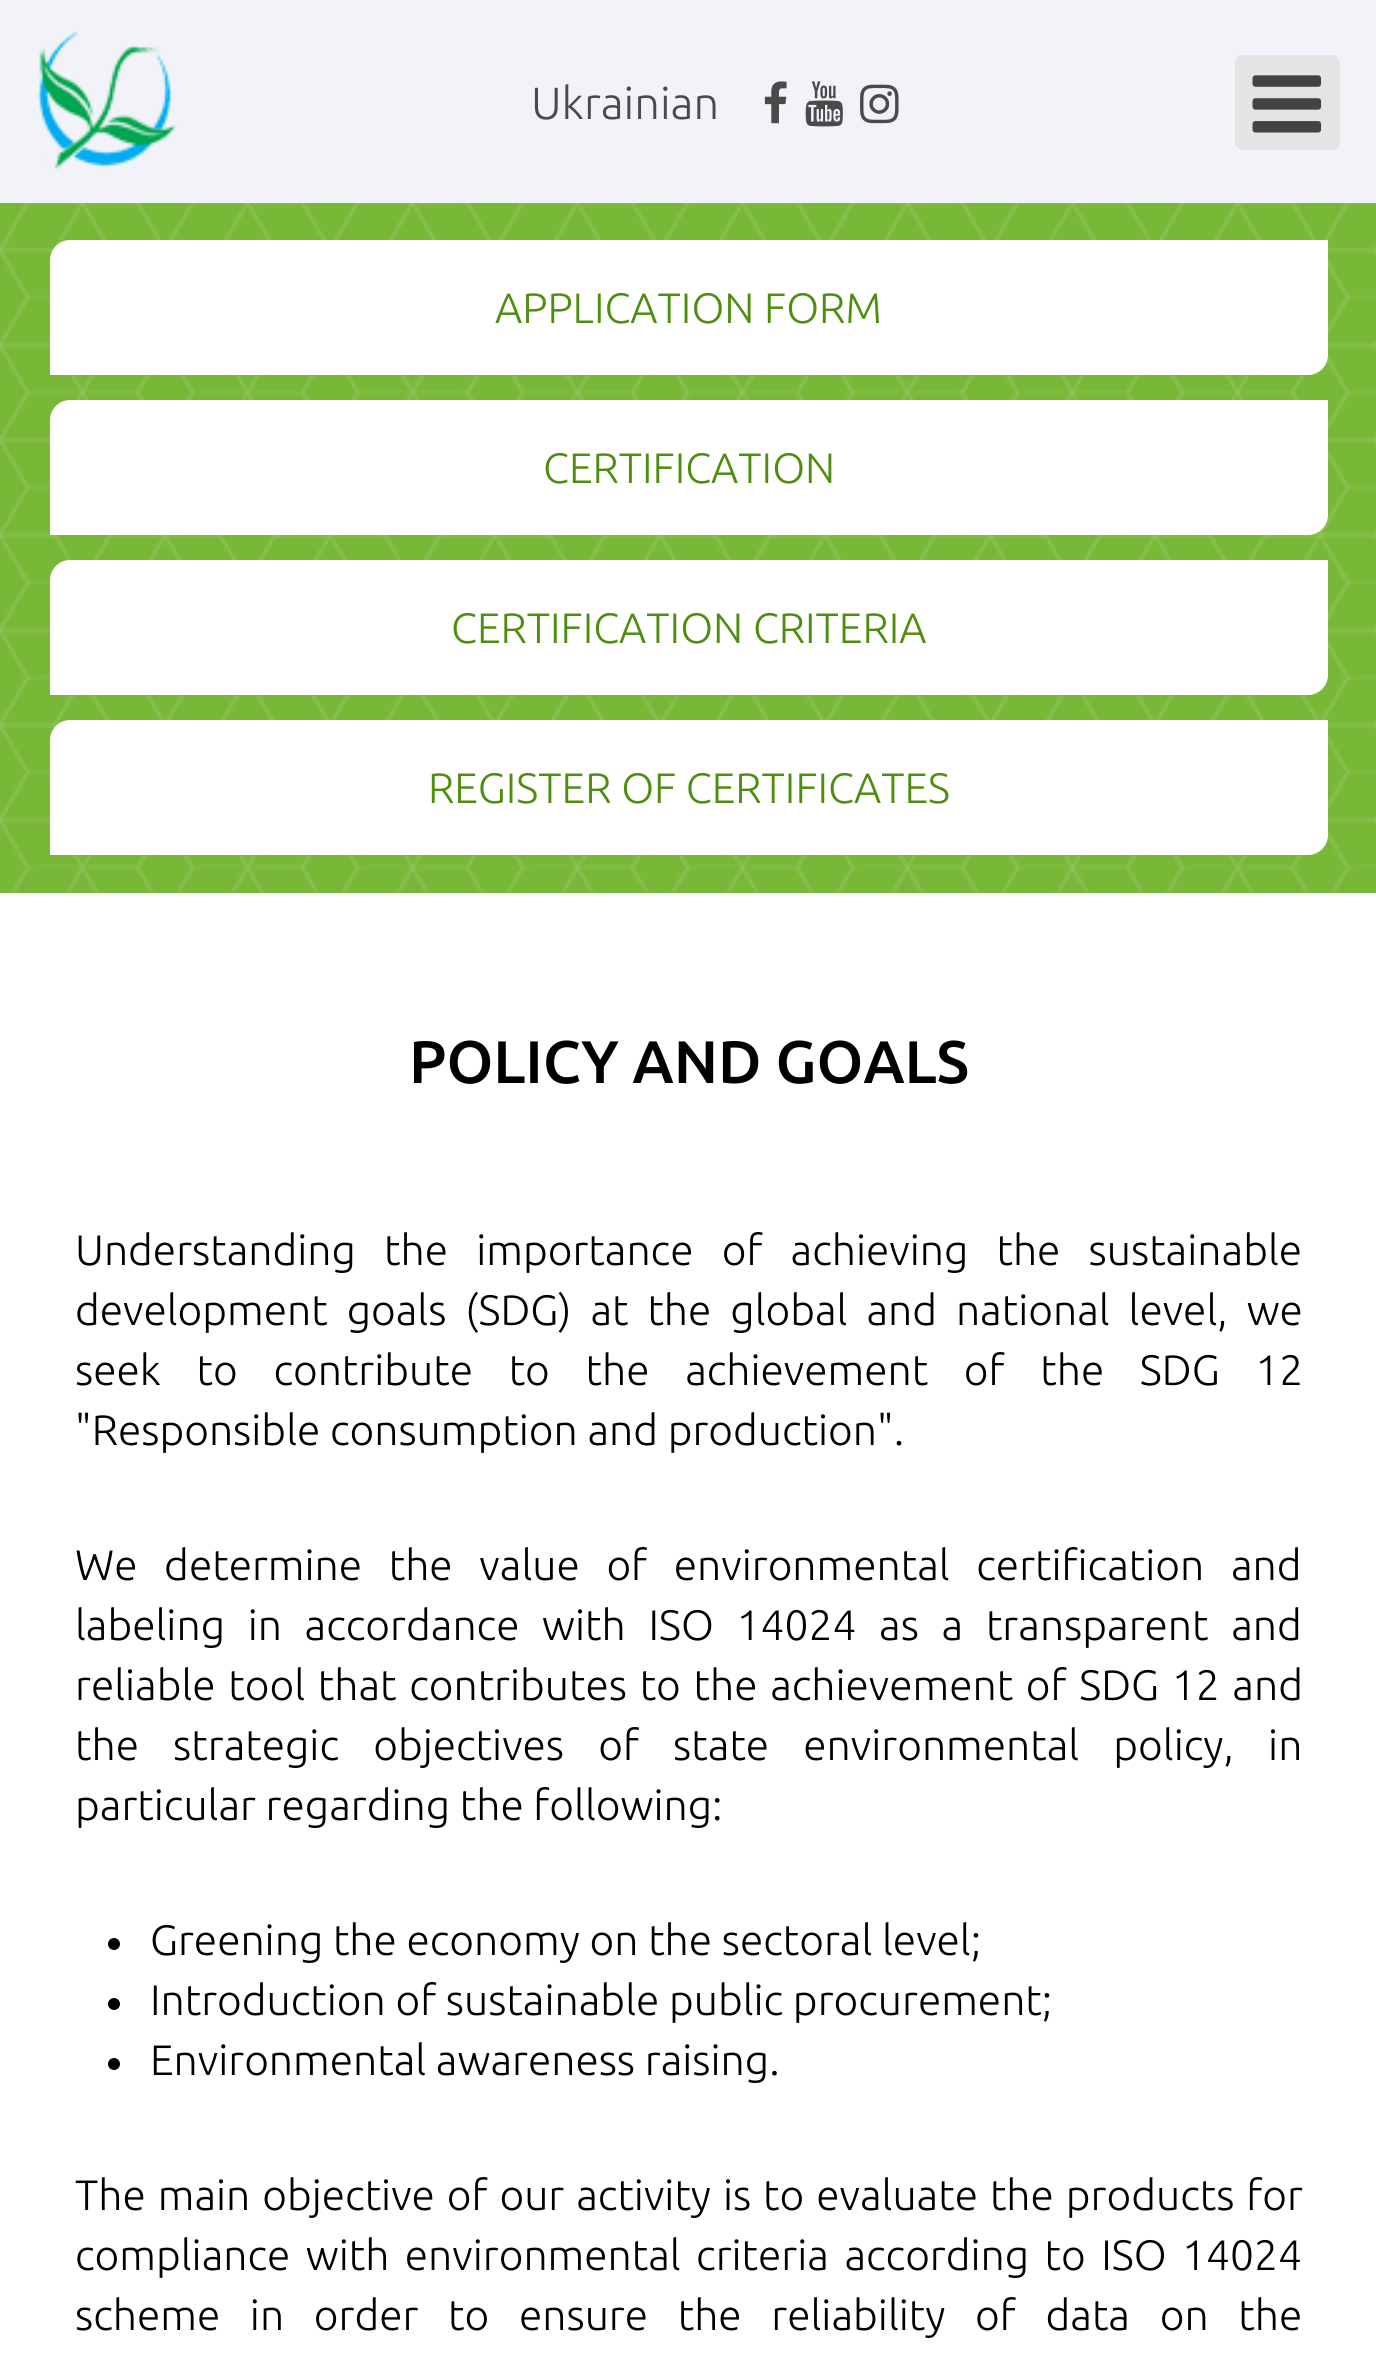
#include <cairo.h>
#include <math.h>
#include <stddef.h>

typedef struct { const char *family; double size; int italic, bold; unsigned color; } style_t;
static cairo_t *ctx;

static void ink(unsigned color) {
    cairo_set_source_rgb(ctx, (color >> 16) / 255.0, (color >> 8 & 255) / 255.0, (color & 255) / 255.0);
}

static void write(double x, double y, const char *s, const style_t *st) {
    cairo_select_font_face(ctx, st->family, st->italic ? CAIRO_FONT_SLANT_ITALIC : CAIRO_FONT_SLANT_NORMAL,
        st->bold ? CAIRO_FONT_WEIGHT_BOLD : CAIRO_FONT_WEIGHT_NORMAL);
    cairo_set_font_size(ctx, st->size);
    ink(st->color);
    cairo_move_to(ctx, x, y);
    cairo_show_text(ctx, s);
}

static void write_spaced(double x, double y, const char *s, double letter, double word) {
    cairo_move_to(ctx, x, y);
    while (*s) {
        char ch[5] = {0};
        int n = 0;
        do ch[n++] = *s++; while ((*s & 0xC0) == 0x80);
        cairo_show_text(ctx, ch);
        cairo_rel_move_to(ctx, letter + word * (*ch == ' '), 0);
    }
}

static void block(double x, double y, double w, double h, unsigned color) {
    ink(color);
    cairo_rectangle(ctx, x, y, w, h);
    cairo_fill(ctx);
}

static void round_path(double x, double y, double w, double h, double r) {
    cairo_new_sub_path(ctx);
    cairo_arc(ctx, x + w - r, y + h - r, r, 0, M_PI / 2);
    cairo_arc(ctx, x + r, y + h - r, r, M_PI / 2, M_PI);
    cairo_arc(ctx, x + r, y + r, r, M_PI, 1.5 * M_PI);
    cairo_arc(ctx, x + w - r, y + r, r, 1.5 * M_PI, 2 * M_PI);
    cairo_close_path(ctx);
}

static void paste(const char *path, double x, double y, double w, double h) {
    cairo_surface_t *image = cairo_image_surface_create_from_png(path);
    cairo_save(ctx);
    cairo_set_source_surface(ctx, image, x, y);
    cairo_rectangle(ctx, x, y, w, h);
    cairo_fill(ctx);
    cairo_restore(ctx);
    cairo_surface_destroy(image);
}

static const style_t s1 = {"Ubuntu Light", 45, 0, 0, 0x4a4a4a};
static const style_t s2 = {"Ubuntu Light", 42.5, 0, 0, 0x4e8d0e};
static const style_t s3 = {"Ubuntu Medium", 60, 0, 0, 0x000000};
static const style_t s4 = {"Ubuntu Light", 42.5, 0, 0, 0x000000};

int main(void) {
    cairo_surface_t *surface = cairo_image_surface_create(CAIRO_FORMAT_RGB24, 1376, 2373);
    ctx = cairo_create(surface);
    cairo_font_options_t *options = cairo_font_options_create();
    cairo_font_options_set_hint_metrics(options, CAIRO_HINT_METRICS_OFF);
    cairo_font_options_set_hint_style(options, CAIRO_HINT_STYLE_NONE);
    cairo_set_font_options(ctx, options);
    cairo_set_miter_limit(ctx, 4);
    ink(0xffffff);
    cairo_paint(ctx);
    block(0, 0, 1376, 203, 0xf2f3f9);
    paste("pic1.png", 37, 30, 140, 140);
    write(531, 119, "Ukrainian", &s1);
    paste("pic2.png", 764, 81, 23, 43);
    paste("pic3.png", 805, 81, 38, 46);
    paste("pic4.png", 860, 84, 39, 40);
    ink(0xe4e4e4);
    round_path(1235, 55, 105, 95, 8);
    cairo_fill(ctx);
    paste("pic5.png", 1252, 75, 70, 58);
    block(0, 203, 1376, 690, 0x78b837);
    paste("pic6.png", 0, 203, 1376, 690);
    ink(0xffffff);
    cairo_new_path(ctx);
    cairo_move_to(ctx, 70, 240);
    cairo_line_to(ctx, 1328, 240);
    cairo_line_to(ctx, 1328, 355);
    cairo_curve_to(ctx, 1328, 366, 1319, 375, 1308, 375);
    cairo_line_to(ctx, 50, 375);
    cairo_line_to(ctx, 50, 260);
    cairo_curve_to(ctx, 50, 249, 59, 240, 70, 240);
    cairo_close_path(ctx);
    cairo_fill(ctx);
    write(495, 323, "APPLICATION FORM", &s2);
    ink(0xffffff);
    cairo_new_path(ctx);
    cairo_move_to(ctx, 70, 400);
    cairo_line_to(ctx, 1328, 400);
    cairo_line_to(ctx, 1328, 515);
    cairo_curve_to(ctx, 1328, 526, 1319, 535, 1308, 535);
    cairo_line_to(ctx, 50, 535);
    cairo_line_to(ctx, 50, 420);
    cairo_curve_to(ctx, 50, 409, 59, 400, 70, 400);
    cairo_close_path(ctx);
    cairo_fill(ctx);
    write(543, 483, "CERTIFICATION", &s2);
    ink(0xffffff);
    cairo_new_path(ctx);
    cairo_move_to(ctx, 70, 560);
    cairo_line_to(ctx, 1328, 560);
    cairo_line_to(ctx, 1328, 675);
    cairo_curve_to(ctx, 1328, 686, 1319, 695, 1308, 695);
    cairo_line_to(ctx, 50, 695);
    cairo_line_to(ctx, 50, 580);
    cairo_curve_to(ctx, 50, 569, 59, 560, 70, 560);
    cairo_close_path(ctx);
    cairo_fill(ctx);
    write(451, 643, "CERTIFICATION CRITERIA", &s2);
    ink(0xffffff);
    cairo_new_path(ctx);
    cairo_move_to(ctx, 70, 720);
    cairo_line_to(ctx, 1328, 720);
    cairo_line_to(ctx, 1328, 835);
    cairo_curve_to(ctx, 1328, 846, 1319, 855, 1308, 855);
    cairo_line_to(ctx, 50, 855);
    cairo_line_to(ctx, 50, 740);
    cairo_curve_to(ctx, 50, 729, 59, 720, 70, 720);
    cairo_close_path(ctx);
    cairo_fill(ctx);
    write(428, 803, "REGISTER OF CERTIFICATES", &s2);
    write(409, 1083, "POLICY AND GOALS", &s3);
    cairo_select_font_face(ctx, "Ubuntu Light", CAIRO_FONT_SLANT_NORMAL, CAIRO_FONT_WEIGHT_NORMAL);
    cairo_set_font_size(ctx, 42.5);
    write_spaced(75, 1265, "Understanding the importance of achieving the sustainable", 0, 18.5);
    write_spaced(75, 1325, "development goals (SDG) at the global and national level, we", 0, 9.25);
    write_spaced(75, 1385, "seek to contribute to the achievement of the SDG 12", 0, 26);
    write(75, 1445, "\"Responsible consumption and production\".", &s4);
    write_spaced(75, 1580, "We determine the value of environmental certification and", 0, 17);
    write_spaced(75, 1640, "labeling in accordance with ISO 14024 as a transparent and", 0, 13);
    write_spaced(75, 1700, "reliable tool that contributes to the achievement of SDG 12 and", 0, 3);
    write_spaced(75, 1760, "the strategic objectives of state environmental policy, in", 0, 24.5);
    write(75, 1820, "particular regarding the following:", &s4);
    cairo_new_path(ctx);
    cairo_arc(ctx, 114, 1944, 6, 0, 2 * M_PI);
    cairo_fill(ctx);
    write(150, 1955, "Greening the economy on the sectoral level;", &s4);
    cairo_new_path(ctx);
    cairo_arc(ctx, 114, 2004, 6, 0, 2 * M_PI);
    cairo_fill(ctx);
    write(150, 2015, "Introduction of sustainable public procurement;", &s4);
    cairo_new_path(ctx);
    cairo_arc(ctx, 114, 2064, 6, 0, 2 * M_PI);
    cairo_fill(ctx);
    write(150, 2075, "Environmental awareness raising.", &s4);
    write_spaced(75, 2210, "The main objective of our activity is to evaluate the products for", 0, 2.25);
    write_spaced(75, 2270, "compliance with environmental criteria according to ISO 14024", 0, 5.75);
    write_spaced(75, 2330, "scheme in order to ensure the reliability of data on the", 0, 20);
    cairo_surface_write_to_png(surface, "screenshot.png");
    cairo_font_options_destroy(options);
    cairo_destroy(ctx);
    cairo_surface_destroy(surface);
    return 0;
}
